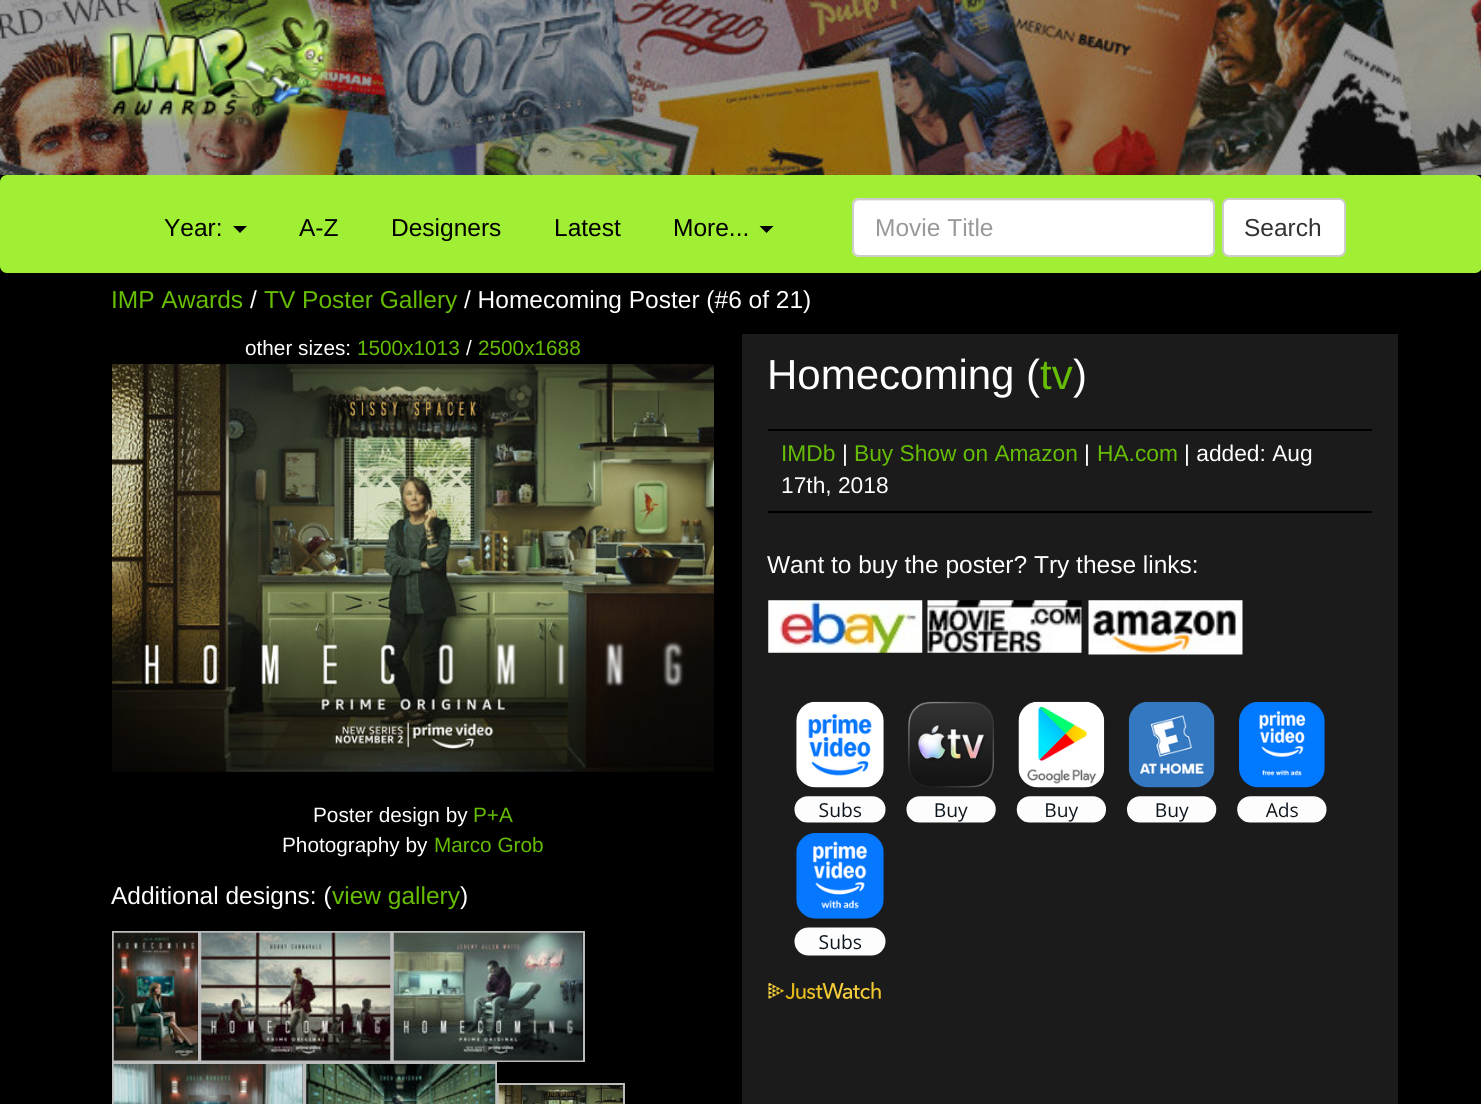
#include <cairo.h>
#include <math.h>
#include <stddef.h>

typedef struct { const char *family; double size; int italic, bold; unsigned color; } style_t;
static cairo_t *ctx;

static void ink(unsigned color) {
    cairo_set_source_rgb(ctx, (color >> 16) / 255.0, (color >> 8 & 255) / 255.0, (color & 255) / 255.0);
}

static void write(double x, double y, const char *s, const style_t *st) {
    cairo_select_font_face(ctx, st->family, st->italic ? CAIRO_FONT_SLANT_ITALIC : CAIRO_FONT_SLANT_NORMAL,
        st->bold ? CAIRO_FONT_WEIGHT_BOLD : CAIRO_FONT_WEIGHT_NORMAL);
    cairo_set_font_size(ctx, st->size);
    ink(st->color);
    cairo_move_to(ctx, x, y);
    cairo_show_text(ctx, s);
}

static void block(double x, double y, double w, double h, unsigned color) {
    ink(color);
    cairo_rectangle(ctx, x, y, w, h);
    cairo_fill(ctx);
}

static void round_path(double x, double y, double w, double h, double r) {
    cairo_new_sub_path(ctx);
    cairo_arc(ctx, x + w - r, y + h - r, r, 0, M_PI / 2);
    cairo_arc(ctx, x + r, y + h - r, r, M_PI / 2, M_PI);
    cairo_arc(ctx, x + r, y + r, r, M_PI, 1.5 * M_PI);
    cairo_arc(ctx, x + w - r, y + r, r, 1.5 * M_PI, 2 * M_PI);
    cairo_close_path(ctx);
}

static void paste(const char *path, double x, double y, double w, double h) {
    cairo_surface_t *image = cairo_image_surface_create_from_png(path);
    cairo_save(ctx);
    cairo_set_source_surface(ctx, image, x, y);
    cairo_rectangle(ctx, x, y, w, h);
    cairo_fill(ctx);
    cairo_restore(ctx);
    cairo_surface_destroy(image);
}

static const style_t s1 = {"Liberation Sans", 24.5, 0, 0, 0x000000};
static const style_t s2 = {"Liberation Sans", 24.5, 0, 0, 0x999999};
static const style_t s3 = {"Liberation Sans", 24.5, 0, 0, 0x333333};
static const style_t s4 = {"Liberation Sans", 24.5, 0, 0, 0x66bd04};
static const style_t s5 = {"Liberation Sans", 24.5, 0, 0, 0xffffff};
static const style_t s6 = {"Liberation Sans", 20.75, 0, 0, 0xffffff};
static const style_t s7 = {"Liberation Sans", 20.75, 0, 0, 0x66bd04};
static const style_t s8 = {"Liberation Sans", 42, 0, 0, 0xffffff};
static const style_t s9 = {"Liberation Sans", 42, 0, 0, 0x66bd04};
static const style_t s10 = {"Liberation Sans", 22.75, 0, 0, 0x66bd04};
static const style_t s11 = {"Liberation Sans", 22.75, 0, 0, 0xffffff};

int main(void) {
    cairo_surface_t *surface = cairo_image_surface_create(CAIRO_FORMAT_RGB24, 1481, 1104);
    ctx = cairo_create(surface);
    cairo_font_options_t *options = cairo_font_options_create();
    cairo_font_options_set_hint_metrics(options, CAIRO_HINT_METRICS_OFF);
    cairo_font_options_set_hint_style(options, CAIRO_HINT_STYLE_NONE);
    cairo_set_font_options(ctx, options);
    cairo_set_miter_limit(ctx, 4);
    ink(0x000000);
    cairo_paint(ctx);
    paste("pic1.png", 0, 0, 1481, 175);
    paste("pic2.png", 96, 4, 246, 125);
    ink(0xa1ef34);
    round_path(0, 175, 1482, 98, 7);
    cairo_fill(ctx);
    write(164, 236, "Year:", &s1);
    cairo_new_path(ctx);
    cairo_move_to(ctx, 233, 226);
    cairo_line_to(ctx, 247, 226);
    cairo_line_to(ctx, 240, 233);
    cairo_close_path(ctx);
    cairo_fill(ctx);
    write(299, 236, "A-Z", &s1);
    write(391, 236, "Designers", &s1);
    write(554, 236, "Latest", &s1);
    write(673, 236, "More...", &s1);
    cairo_new_path(ctx);
    cairo_move_to(ctx, 759.5, 226);
    cairo_line_to(ctx, 773.5, 226);
    cairo_line_to(ctx, 766.5, 233);
    cairo_close_path(ctx);
    cairo_fill(ctx);
    ink(0xffffff);
    round_path(852, 198, 363, 59, 7);
    cairo_fill(ctx);
    ink(0xececec);
    cairo_new_path(ctx);
    cairo_move_to(ctx, 859, 201);
    cairo_line_to(ctx, 1208, 201);
    cairo_curve_to(ctx, 1210, 201, 1213, 204, 1213, 206);
    cairo_line_to(ctx, 1213, 205);
    cairo_curve_to(ctx, 1213, 202, 1211, 200, 1208, 200);
    cairo_line_to(ctx, 859, 200);
    cairo_curve_to(ctx, 856, 200, 854, 202, 854, 205);
    cairo_line_to(ctx, 854, 206);
    cairo_curve_to(ctx, 854, 204, 856, 201, 859, 201);
    cairo_close_path(ctx);
    cairo_fill(ctx);
    round_path(853, 199, 361, 57, 6);
    ink(0xcccccc);
    cairo_stroke(ctx);
    write(875, 236, "Movie Title", &s2);
    ink(0xffffff);
    round_path(1223, 199, 122, 57, 6);
    cairo_fill_preserve(ctx);
    ink(0xcccccc);
    cairo_stroke(ctx);
    write(1244, 236, "Search", &s3);
    write(111, 308, "IMP Awards", &s4);
    write(250, 308, "/", &s5);
    write(264, 308, "TV Poster Gallery", &s4);
    write(464, 308, "/ Homecoming Poster (#6 of 21)", &s5);
    write(245, 355, "other sizes:", &s6);
    write(357, 355, "1500x1013", &s7);
    write(466, 355, "/", &s6);
    write(478, 355, "2500x1688", &s7);
    paste("pic3.png", 112, 364, 602, 408);
    write(313, 822, "Poster design by", &s6);
    write(473, 822, "P+A", &s7);
    write(282, 852, "Photography by", &s6);
    write(434, 852, "Marco Grob", &s7);
    write(111, 904, "Additional designs: (", &s5);
    write(332, 904, "view gallery", &s4);
    write(460, 904, ")", &s5);
    cairo_rectangle(ctx, 113, 932, 86, 129);
    ink(0xbcbcbc);
    cairo_stroke(ctx);
    cairo_rectangle(ctx, 201, 932, 190, 129);
    cairo_stroke(ctx);
    cairo_rectangle(ctx, 393, 932, 191, 129);
    cairo_stroke(ctx);
    paste("pic4.png", 113, 932, 85, 129);
    paste("pic5.png", 201, 932, 190, 129);
    paste("pic6.png", 393, 932, 190, 129);
    cairo_rectangle(ctx, 113, 1063, 191, 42);
    cairo_stroke(ctx);
    cairo_rectangle(ctx, 306, 1063, 190, 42);
    cairo_stroke(ctx);
    paste("pic7.png", 113, 1064, 190, 40);
    paste("pic8.png", 306, 1064, 190, 40);
    cairo_rectangle(ctx, 498, 1084, 126, 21);
    cairo_stroke(ctx);
    paste("pic9.png", 498, 1085, 125, 19);
    block(742, 334, 656, 770, 0x1b1b1b);
    write(767, 389, "Homecoming (", &s8);
    write(1040, 389, "tv", &s9);
    write(1073, 389, ")", &s8);
    block(768, 429, 604, 2, 0x000000);
    block(768, 511, 604, 2, 0x000000);
    write(781, 461, "IMDb", &s10);
    write(842, 461, "|", &s11);
    write(854, 461, "Buy Show on Amazon", &s10);
    write(1084, 461, "|", &s11);
    write(1097, 461, "HA.com", &s10);
    write(1184, 461, "| added: Aug", &s11);
    write(781, 493, "17th, 2018", &s11);
    write(767, 573, "Want to buy the poster? Try these links:", &s5);
    paste("pic10.png", 768, 600, 155, 53);
    paste("pic11.png", 927, 600, 155, 53);
    paste("pic12.png", 1088, 600, 155, 55);
    paste("pic13.png", 794, 701, 533, 255);
    paste("pic14.png", 768, 982, 113, 17);
    cairo_surface_write_to_png(surface, "screenshot.png");
    cairo_font_options_destroy(options);
    cairo_destroy(ctx);
    cairo_surface_destroy(surface);
    return 0;
}
